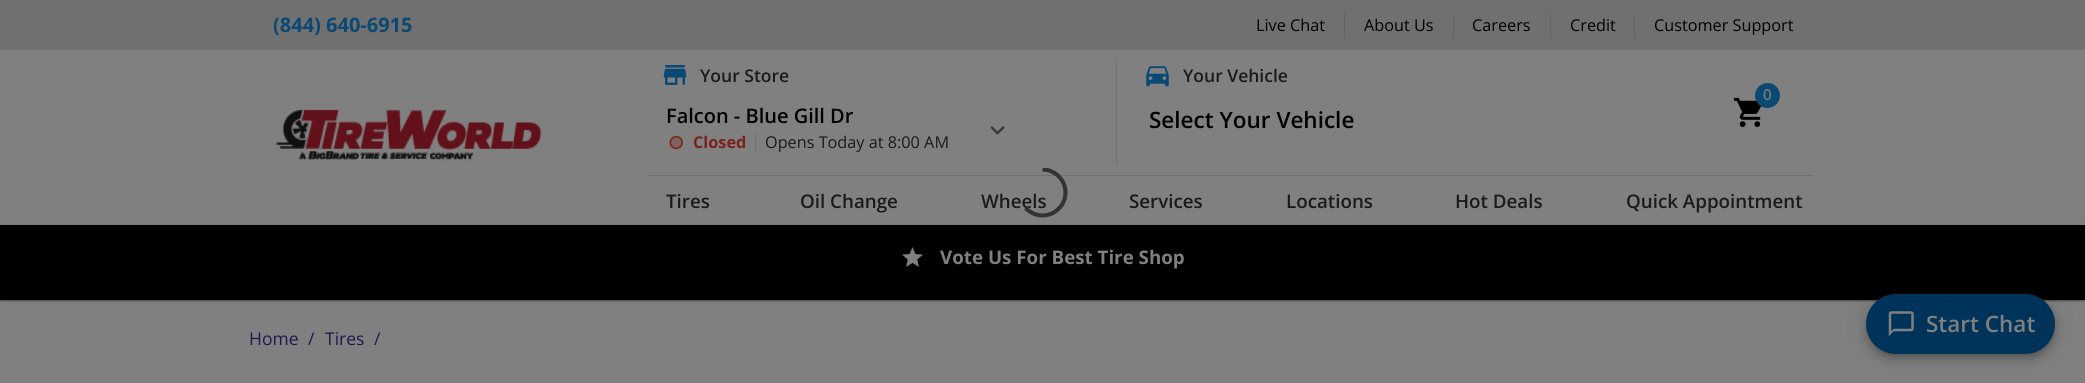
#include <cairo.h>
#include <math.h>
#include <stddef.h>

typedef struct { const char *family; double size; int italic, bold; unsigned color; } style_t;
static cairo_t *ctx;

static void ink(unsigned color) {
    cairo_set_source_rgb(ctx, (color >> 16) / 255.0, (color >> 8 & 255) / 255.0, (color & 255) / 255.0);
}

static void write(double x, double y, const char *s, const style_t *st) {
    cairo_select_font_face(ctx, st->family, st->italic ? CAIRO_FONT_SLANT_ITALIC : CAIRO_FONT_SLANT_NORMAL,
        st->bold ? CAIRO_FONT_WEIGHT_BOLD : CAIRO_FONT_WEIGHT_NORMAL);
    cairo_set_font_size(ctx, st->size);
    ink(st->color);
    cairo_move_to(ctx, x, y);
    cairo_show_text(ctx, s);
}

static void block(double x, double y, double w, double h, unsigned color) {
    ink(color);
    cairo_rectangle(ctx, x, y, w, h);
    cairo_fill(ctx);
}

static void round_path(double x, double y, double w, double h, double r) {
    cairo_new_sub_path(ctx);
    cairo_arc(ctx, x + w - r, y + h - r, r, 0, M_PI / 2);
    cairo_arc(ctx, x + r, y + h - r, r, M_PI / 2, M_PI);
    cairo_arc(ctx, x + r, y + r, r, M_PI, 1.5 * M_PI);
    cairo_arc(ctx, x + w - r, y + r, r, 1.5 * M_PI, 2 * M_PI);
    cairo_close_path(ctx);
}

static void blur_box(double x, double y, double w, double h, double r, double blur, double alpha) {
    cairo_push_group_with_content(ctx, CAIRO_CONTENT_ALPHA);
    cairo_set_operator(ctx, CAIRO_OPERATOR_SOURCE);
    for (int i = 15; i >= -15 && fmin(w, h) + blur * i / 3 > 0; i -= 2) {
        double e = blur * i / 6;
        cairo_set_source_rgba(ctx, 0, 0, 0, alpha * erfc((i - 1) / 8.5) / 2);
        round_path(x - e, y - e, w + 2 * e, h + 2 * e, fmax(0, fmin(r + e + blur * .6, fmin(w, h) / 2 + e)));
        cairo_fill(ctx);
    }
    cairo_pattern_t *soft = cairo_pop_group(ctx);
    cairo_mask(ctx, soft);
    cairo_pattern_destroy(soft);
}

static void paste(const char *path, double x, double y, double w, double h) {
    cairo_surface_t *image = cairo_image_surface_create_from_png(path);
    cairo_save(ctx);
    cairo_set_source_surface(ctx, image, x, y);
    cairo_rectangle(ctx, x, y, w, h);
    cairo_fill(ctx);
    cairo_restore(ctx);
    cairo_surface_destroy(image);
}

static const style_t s1 = {"Open Sans", 20, 0, 1, 0x0b4973};
static const style_t s2 = {"Open Sans", 16.25, 0, 0, 0x000000};
static const style_t s3 = {"Open Sans SemiBold", 17.5, 0, 0, 0x1a1a1a};
static const style_t s4 = {"Open Sans SemiBold", 20, 0, 0, 0x000000};
static const style_t s5 = {"Open Sans", 16.25, 0, 1, 0x7a221b};
static const style_t s6 = {"Open Sans", 16.25, 0, 0, 0x1a1a1a};
static const style_t s7 = {"Open Sans SemiBold", 22.5, 0, 0, 0x000000};
static const style_t s8 = {"Open Sans Medium", 15, 0, 0, 0x808080};
static const style_t s9 = {"Open Sans SemiBold", 18.75, 0, 0, 0x1a1a1a};
static const style_t s10 = {"Open Sans", 18.75, 0, 1, 0x808080};
static const style_t s11 = {"Open Sans SemiBold", 22.5, 0, 0, 0x808080};
static const style_t s12 = {"Open Sans", 17.5, 0, 0, 0x1a1a4d};

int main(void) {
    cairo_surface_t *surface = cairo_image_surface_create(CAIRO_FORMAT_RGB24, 2085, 383);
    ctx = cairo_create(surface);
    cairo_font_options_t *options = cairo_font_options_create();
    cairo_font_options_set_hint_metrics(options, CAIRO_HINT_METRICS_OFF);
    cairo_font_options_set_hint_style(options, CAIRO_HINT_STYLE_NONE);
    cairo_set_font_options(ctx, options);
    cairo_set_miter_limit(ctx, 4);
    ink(0x808080);
    cairo_paint(ctx);
    block(0, 0, 2085, 50, 0x707070);
    write(273, 32, "(844) 640-6915", &s1);
    block(1344, 13, 1, 25, 0x636363);
    write(1256, 31, "Live Chat", &s2);
    block(1453, 13, 1, 25, 0x636363);
    write(1364, 31, "About Us", &s2);
    block(1550, 13, 1, 25, 0x636363);
    write(1472, 31, "Careers", &s2);
    block(1634, 13, 1, 25, 0x636363);
    write(1570, 31, "Credit", &s2);
    write(1654, 31, "Customer Support", &s2);
    paste("pic1.png", 276, 109, 266, 52);
    paste("pic2.png", 663, 65, 24, 20);
    write(700, 82, "Your Store", &s3);
    write(666, 123, "Falcon - Blue Gill Dr", &s4);
    paste("pic3.png", 669, 135, 14, 15);
    write(693, 148, "Closed", &s5);
    block(755, 133, 1, 18, 0x707070);
    write(765, 148, "Opens Today at 8:00 AM", &s6);
    paste("pic4.png", 990, 126, 15, 9);
    block(1116, 60, 1, 105, 0x707070);
    paste("pic5.png", 1146, 66, 23, 21);
    write(1183, 82, "Your Vehicle", &s3);
    write(1149, 128, "Select Your Vehicle", &s7);
    paste("pic6.png", 1733, 97, 29, 31);
    ink(0x0b4973);
    cairo_arc(ctx, 1767.5, 95.5, 12.5, 0, 2 * M_PI);
    cairo_fill(ctx);
    write(1763, 100, "0", &s8);
    block(648, 175, 1165, 1, 0x707070);
    write(666, 208, "Tires", &s9);
    write(800, 208, "Oil Change", &s9);
    write(981, 208, "Wheels", &s9);
    write(1129, 208, "Services", &s9);
    write(1286, 208, "Locations", &s9);
    write(1455, 208, "Hot Deals", &s9);
    write(1626, 208, "Quick Appointment", &s9);
    ink(0x000000);
    blur_box(0, 226, 2085, 75, 0, 2, 0.12);
    blur_box(0, 226, 2085, 75, 0, 0.5, 0.14);
    blur_box(1, 229, 2083, 72, 0, 0.5, 0.2);
    block(0, 225, 2085, 75, 0x000000);
    paste("pic7.png", 902, 247, 21, 20);
    write(940, 264, "Vote Us For Best Tire Shop", &s10);
    cairo_save(ctx);
    cairo_rectangle(ctx, 1018, 168, 50, 50);
    cairo_clip(ctx);
    cairo_new_path(ctx);
    cairo_move_to(ctx, 1042.5, 169.5);
    cairo_curve_to(ctx, 1055, 169.5, 1065.5, 180, 1065.5, 192.5);
    cairo_curve_to(ctx, 1065.5, 205, 1055, 215.5, 1042.5, 215.5);
    cairo_curve_to(ctx, 1036, 215.5, 1030, 212.5, 1025.5, 208);
    ink(0x333333);
    cairo_set_line_width(ctx, 4.1);
    cairo_stroke(ctx);
    cairo_restore(ctx);
    ink(0x000000);
    blur_box(1866, 295, 189, 60, 30, 11, 0.12);
    blur_box(1866, 301, 189, 60, 30, 6, 0.14);
    blur_box(1868, 299, 186, 57, 28.5, 3, 0.2);
    ink(0x00335a);
    round_path(1866, 294, 189, 60, 30);
    cairo_fill(ctx);
    paste("pic8.png", 1888, 311, 26, 26);
    write(1926, 332, "Start Chat", &s11);
    write(249, 345, "Home", &s12);
    write(308, 345, "/", &s12);
    write(325, 345, "Tires", &s12);
    write(374, 345, "/", &s12);
    cairo_surface_write_to_png(surface, "screenshot.png");
    cairo_font_options_destroy(options);
    cairo_destroy(ctx);
    cairo_surface_destroy(surface);
    return 0;
}
